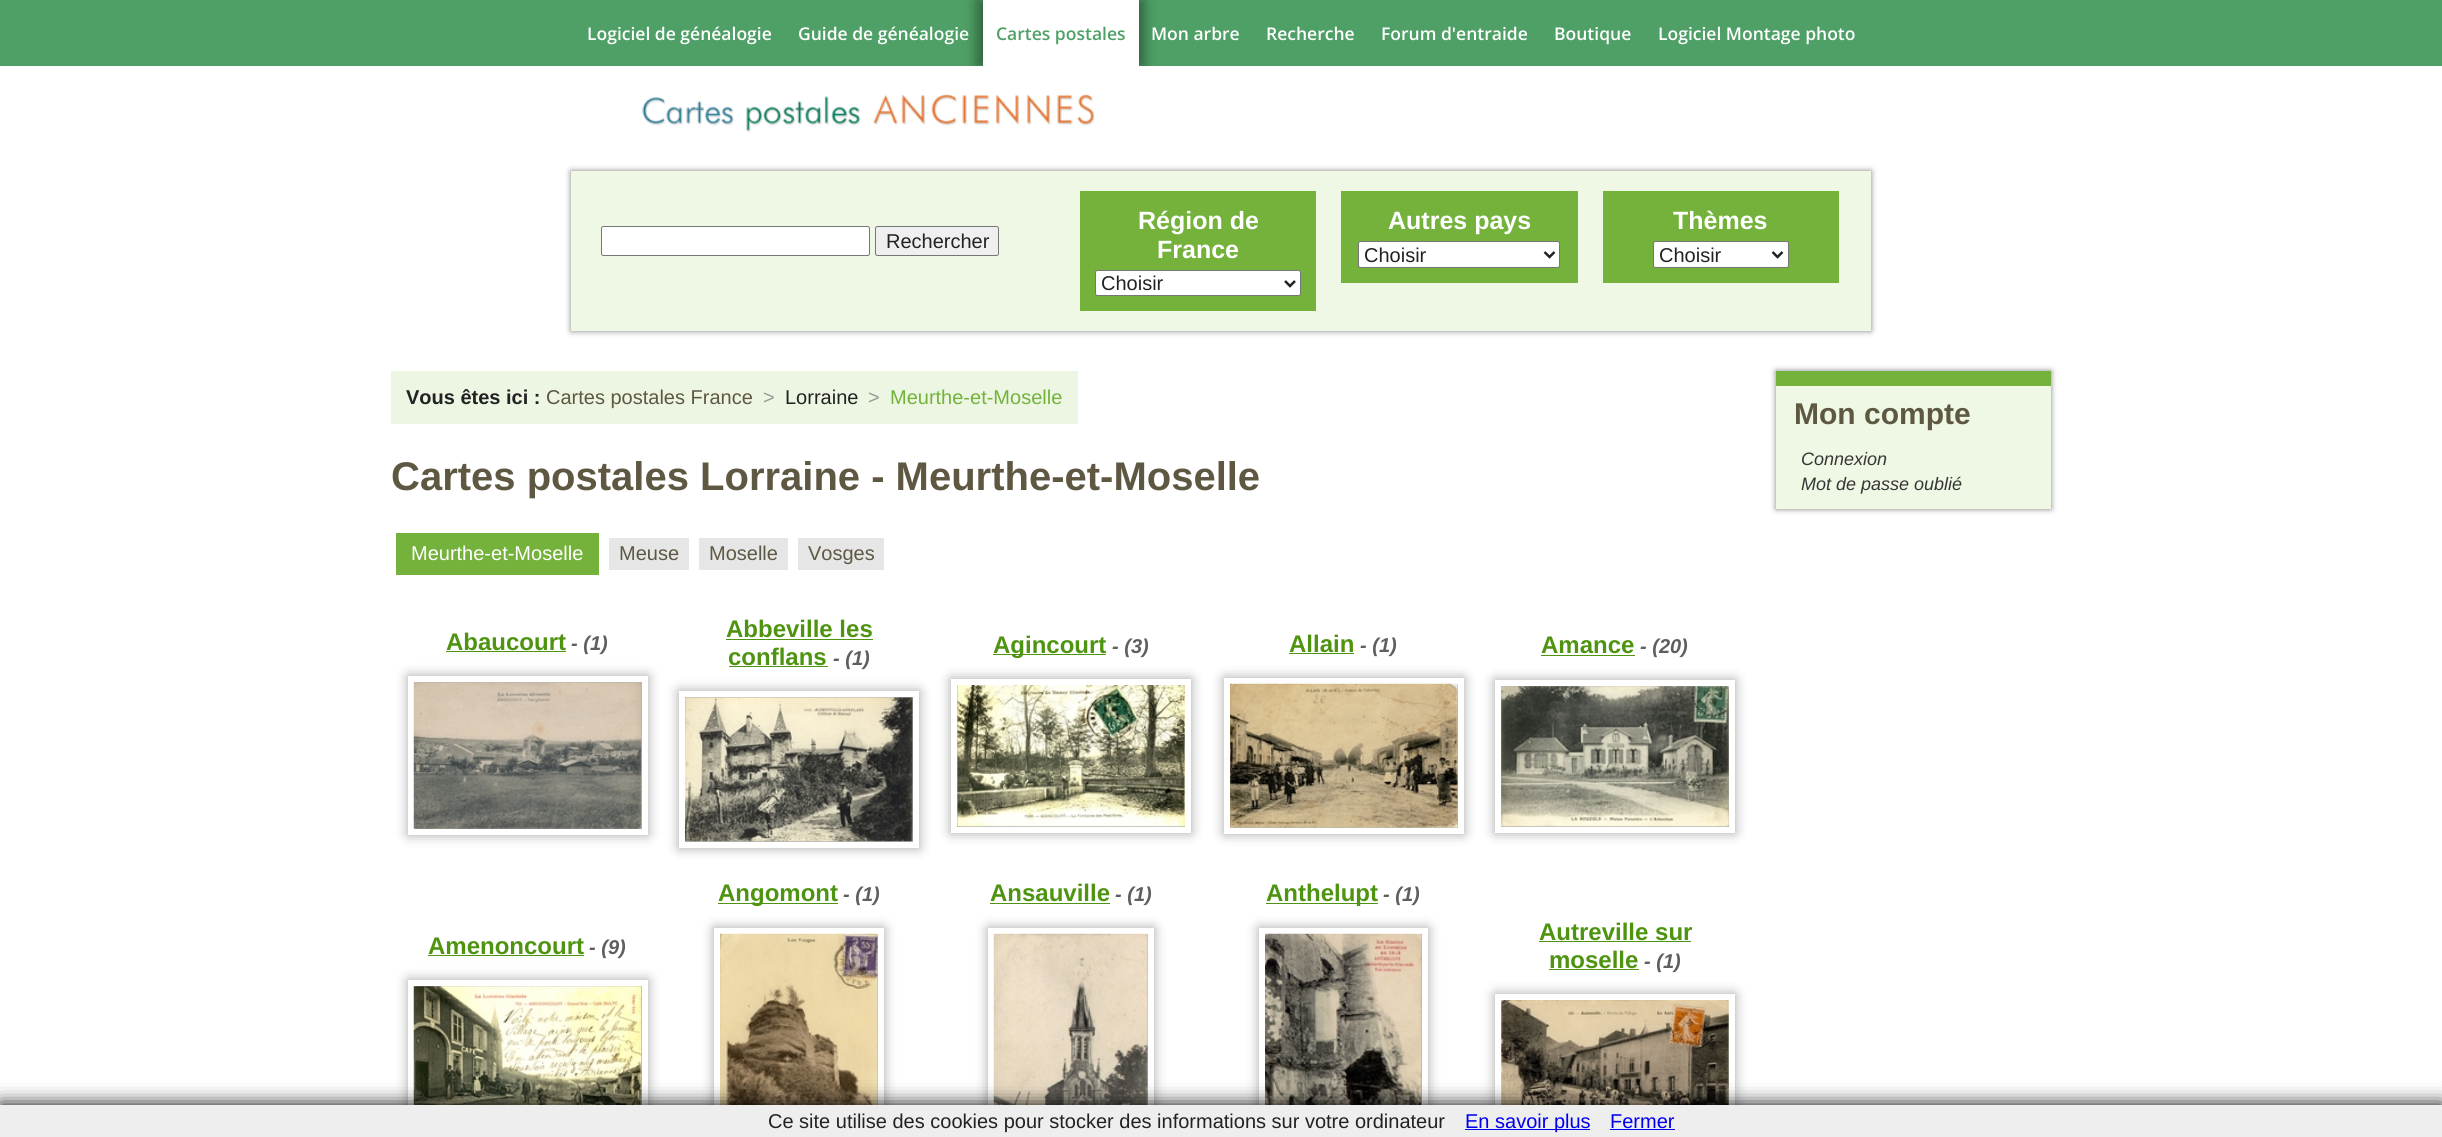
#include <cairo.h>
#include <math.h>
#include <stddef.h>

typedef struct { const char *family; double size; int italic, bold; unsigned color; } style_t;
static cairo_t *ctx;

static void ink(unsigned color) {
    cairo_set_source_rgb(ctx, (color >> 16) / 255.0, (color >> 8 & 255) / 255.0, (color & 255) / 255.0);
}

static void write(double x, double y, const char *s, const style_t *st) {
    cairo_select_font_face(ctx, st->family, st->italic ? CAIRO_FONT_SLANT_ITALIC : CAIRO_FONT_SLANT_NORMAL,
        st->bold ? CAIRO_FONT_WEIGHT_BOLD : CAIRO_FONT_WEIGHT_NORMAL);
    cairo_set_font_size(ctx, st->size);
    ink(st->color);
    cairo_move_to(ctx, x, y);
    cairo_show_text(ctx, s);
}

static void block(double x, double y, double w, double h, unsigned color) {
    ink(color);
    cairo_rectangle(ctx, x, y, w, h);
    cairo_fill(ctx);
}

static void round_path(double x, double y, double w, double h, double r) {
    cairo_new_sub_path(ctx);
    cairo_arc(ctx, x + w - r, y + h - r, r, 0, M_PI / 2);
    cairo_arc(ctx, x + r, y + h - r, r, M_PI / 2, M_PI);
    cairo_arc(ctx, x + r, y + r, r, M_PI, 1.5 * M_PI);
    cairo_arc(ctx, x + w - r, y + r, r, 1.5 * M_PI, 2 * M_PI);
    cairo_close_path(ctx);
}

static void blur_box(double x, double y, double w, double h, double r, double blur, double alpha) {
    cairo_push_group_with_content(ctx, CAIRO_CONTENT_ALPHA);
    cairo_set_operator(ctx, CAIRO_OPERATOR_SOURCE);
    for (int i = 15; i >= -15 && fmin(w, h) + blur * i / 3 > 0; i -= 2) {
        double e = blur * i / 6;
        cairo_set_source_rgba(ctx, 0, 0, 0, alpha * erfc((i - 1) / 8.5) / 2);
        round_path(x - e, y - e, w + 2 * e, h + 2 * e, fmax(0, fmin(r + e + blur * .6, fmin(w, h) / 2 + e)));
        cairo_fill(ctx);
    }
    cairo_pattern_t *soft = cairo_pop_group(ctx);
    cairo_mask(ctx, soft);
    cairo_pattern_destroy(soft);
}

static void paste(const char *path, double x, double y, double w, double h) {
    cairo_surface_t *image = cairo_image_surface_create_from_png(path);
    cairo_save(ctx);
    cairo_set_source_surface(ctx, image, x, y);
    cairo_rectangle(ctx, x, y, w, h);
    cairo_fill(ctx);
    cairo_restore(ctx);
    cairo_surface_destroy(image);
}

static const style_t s1 = {"Open Sans SemiBold", 17.5, 0, 0, 0xffffff};
static const style_t s2 = {"Open Sans SemiBold", 17.5, 0, 0, 0x4fa066};
static const style_t s3 = {"Liberation Sans", 20, 0, 0, 0x222222};
static const style_t s4 = {"Liberation Sans", 25, 0, 1, 0xffffff};
static const style_t s5 = {"Liberation Sans", 20, 0, 1, 0x222222};
static const style_t s6 = {"Liberation Sans", 20, 0, 0, 0x5e5842};
static const style_t s7 = {"Liberation Sans", 20, 0, 0, 0x999999};
static const style_t s8 = {"Liberation Sans", 20, 0, 0, 0x74b23c};
static const style_t s9 = {"Liberation Sans", 40, 0, 1, 0x5e5842};
static const style_t s10 = {"Liberation Sans", 20, 0, 0, 0xffffff};
static const style_t s11 = {"Liberation Sans", 24, 0, 1, 0x4f9411};
static const style_t s12 = {"Liberation Sans", 20, 1, 1, 0x5f5f5f};
static const style_t s13 = {"Liberation Sans", 30, 0, 1, 0x5e5842};
static const style_t s14 = {"Liberation Sans", 18, 1, 0, 0x353535};
static const style_t s15 = {"Liberation Sans", 20, 0, 0, 0x0000ee};

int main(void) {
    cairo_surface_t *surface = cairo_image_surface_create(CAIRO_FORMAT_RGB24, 2442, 1137);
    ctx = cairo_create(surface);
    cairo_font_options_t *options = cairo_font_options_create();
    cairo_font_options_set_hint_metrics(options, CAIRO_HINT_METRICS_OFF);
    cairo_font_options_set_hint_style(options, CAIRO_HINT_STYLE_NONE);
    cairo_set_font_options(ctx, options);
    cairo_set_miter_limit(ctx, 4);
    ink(0xffffff);
    cairo_paint(ctx);
    block(0, 0, 2442, 66, 0x4fa066);
    write(587, 40, "Logiciel de généalogie", &s1);
    write(798, 40, "Guide de généalogie", &s1);
    cairo_save(ctx);
    cairo_rectangle(ctx, 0, 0, 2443, 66);
    cairo_clip(ctx);
    ink(0x000000);
    blur_box(976, 0, 157, 66, 0, 6, 0.35);
    blur_box(989, 0, 156, 66, 0, 6, 0.35);
    cairo_restore(ctx);
    block(983, 0, 156, 66, 0xffffff);
    write(996, 40, "Cartes postales", &s2);
    write(1151, 40, "Mon arbre", &s1);
    write(1266, 40, "Recherche", &s1);
    write(1381, 40, "Forum d'entraide", &s1);
    write(1554, 40, "Boutique", &s1);
    write(1658, 40, "Logiciel Montage photo", &s1);
    paste("pic1.png", 642, 94, 453, 39);
    ink(0x000000);
    blur_box(571, 171, 1300, 160, 0, 3, 0.5);
    block(571, 171, 1300, 160, 0xeef8e4);
    ink(0xffffff);
    round_path(601.5, 226.5, 268, 29, 2);
    cairo_fill_preserve(ctx);
    ink(0x767676);
    cairo_set_line_width(ctx, 1);
    cairo_stroke(ctx);
    ink(0xefefef);
    round_path(875.5, 226.5, 123, 29, 2);
    cairo_fill_preserve(ctx);
    ink(0x767676);
    cairo_stroke(ctx);
    write(886, 248, "Rechercher", &s3);
    block(1080, 191, 236, 120, 0x74b23c);
    write(1138, 229, "Région de", &s4);
    write(1157, 258, "France", &s4);
    round_path(1095.5, 270.5, 205, 25, 2);
    cairo_fill_preserve(ctx);
    ink(0x767676);
    cairo_stroke(ctx);
    cairo_new_path(ctx);
    cairo_move_to(ctx, 1285, 281);
    cairo_line_to(ctx, 1290, 286);
    cairo_line_to(ctx, 1295, 281);
    ink(0x222222);
    cairo_set_line_width(ctx, 2.5);
    cairo_stroke(ctx);
    write(1101, 290, "Choisir", &s3);
    block(1341, 191, 237, 92, 0x74b23c);
    write(1388, 229, "Autres pays", &s4);
    round_path(1358.5, 241.5, 201, 26, 2);
    cairo_fill_preserve(ctx);
    ink(0x767676);
    cairo_set_line_width(ctx, 1);
    cairo_stroke(ctx);
    cairo_new_path(ctx);
    cairo_move_to(ctx, 1544.5, 252);
    cairo_line_to(ctx, 1549.5, 257);
    cairo_line_to(ctx, 1554.5, 252);
    ink(0x222222);
    cairo_set_line_width(ctx, 2.5);
    cairo_stroke(ctx);
    write(1364, 262, "Choisir", &s3);
    block(1603, 191, 236, 92, 0x74b23c);
    write(1673, 229, "Thèmes", &s4);
    round_path(1653.5, 241.5, 135, 26, 2);
    cairo_fill_preserve(ctx);
    ink(0x767676);
    cairo_set_line_width(ctx, 1);
    cairo_stroke(ctx);
    cairo_new_path(ctx);
    cairo_move_to(ctx, 1772.5, 252);
    cairo_line_to(ctx, 1777.5, 257);
    cairo_line_to(ctx, 1782.5, 252);
    ink(0x222222);
    cairo_set_line_width(ctx, 2.5);
    cairo_stroke(ctx);
    write(1659, 262, "Choisir", &s3);
    block(391, 371, 687, 53, 0xecf6e2);
    write(406, 404, "Vous êtes ici :", &s5);
    write(546, 404, "Cartes postales France", &s6);
    write(763, 404, ">", &s7);
    write(785, 404, "Lorraine", &s3);
    write(868, 404, ">", &s7);
    write(890, 404, "Meurthe-et-Moselle", &s8);
    write(391, 490, "Cartes postales Lorraine - Meurthe-et-Moselle", &s9);
    block(396, 533, 203, 42, 0x74b23c);
    write(411, 560, "Meurthe-et-Moselle", &s10);
    block(609, 538, 80, 32, 0xe6e6e6);
    write(619, 560, "Meuse", &s6);
    block(699, 538, 89, 32, 0xe6e6e6);
    write(709, 560, "Moselle", &s6);
    block(798, 538, 86, 32, 0xe6e6e6);
    write(808, 560, "Vosges", &s6);
    write(446, 650, "Abaucourt", &s11);
    block(446, 651, 120, 1, 0x4f9411);
    write(571, 650, "- (1)", &s12);
    ink(0x000000);
    blur_box(408, 676, 240, 159, 0, 6, 0.35);
    cairo_rectangle(ctx, 411, 679, 234, 153);
    ink(0xffffff);
    cairo_set_line_width(ctx, 6);
    cairo_stroke(ctx);
    paste("pic2.png", 413, 682, 229, 147);
    write(726, 637, "Abbeville les", &s11);
    block(726, 639, 147, 1, 0x4f9411);
    write(728, 665, "conflans", &s11);
    block(729, 666, 99, 1, 0x4f9411);
    write(833, 665, "- (1)", &s12);
    ink(0x000000);
    blur_box(679, 691, 240, 157, 0, 6, 0.35);
    cairo_rectangle(ctx, 682, 694, 234, 151);
    ink(0xffffff);
    cairo_stroke(ctx);
    paste("pic3.png", 685, 697, 228, 145);
    block(993, 654, 113, 1, 0x4f9411);
    write(993, 653, "Agincourt", &s11);
    write(1112, 653, "- (3)", &s12);
    ink(0x000000);
    blur_box(951, 679, 240, 154, 0, 6, 0.35);
    cairo_rectangle(ctx, 954, 682, 234, 148);
    ink(0xffffff);
    cairo_stroke(ctx);
    paste("pic4.png", 957, 685, 228, 142);
    write(1289, 652, "Allain", &s11);
    block(1289, 653, 65, 1, 0x4f9411);
    write(1360, 652, "- (1)", &s12);
    ink(0x000000);
    blur_box(1224, 678, 240, 156, 0, 6, 0.35);
    cairo_rectangle(ctx, 1227, 681, 234, 150);
    ink(0xffffff);
    cairo_stroke(ctx);
    paste("pic5.png", 1230, 683, 228, 145);
    write(1541, 653, "Amance", &s11);
    block(1541, 655, 94, 1, 0x4f9411);
    write(1640, 653, "- (20)", &s12);
    ink(0x000000);
    blur_box(1495, 680, 240, 153, 0, 6, 0.35);
    cairo_rectangle(ctx, 1498, 683, 234, 147);
    ink(0xffffff);
    cairo_stroke(ctx);
    paste("pic6.png", 1501, 686, 228, 141);
    block(718, 903, 120, 1, 0x4f9411);
    write(718, 901, "Angomont", &s11);
    write(843, 901, "- (1)", &s12);
    ink(0x000000);
    blur_box(714, 928, 170, 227, 0, 6, 0.35);
    cairo_rectangle(ctx, 717, 931, 164, 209);
    ink(0xffffff);
    cairo_stroke(ctx);
    paste("pic7.png", 720, 933, 158, 172);
    write(990, 901, "Ansauville", &s11);
    block(990, 903, 120, 1, 0x4f9411);
    write(1115, 901, "- (1)", &s12);
    ink(0x000000);
    blur_box(988, 928, 166, 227, 0, 6, 0.35);
    cairo_rectangle(ctx, 991, 931, 160, 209);
    ink(0xffffff);
    cairo_stroke(ctx);
    paste("pic8.png", 993, 933, 155, 172);
    block(1266, 903, 112, 1, 0x4f9411);
    write(1266, 901, "Anthelupt", &s11);
    write(1383, 901, "- (1)", &s12);
    ink(0x000000);
    blur_box(1259, 928, 169, 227, 0, 6, 0.35);
    cairo_rectangle(ctx, 1262, 931, 163, 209);
    ink(0xffffff);
    cairo_stroke(ctx);
    paste("pic9.png", 1265, 933, 157, 172);
    write(428, 954, "Amenoncourt", &s11);
    block(428, 955, 156, 1, 0x4f9411);
    write(589, 954, "- (9)", &s12);
    ink(0x000000);
    blur_box(408, 980, 240, 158, 0, 6, 0.35);
    cairo_rectangle(ctx, 411, 983, 234, 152);
    ink(0xffffff);
    cairo_stroke(ctx);
    paste("pic10.png", 413, 986, 229, 119);
    write(1539, 940, "Autreville sur", &s11);
    block(1539, 941, 152, 1, 0x4f9411);
    write(1549, 968, "moselle", &s11);
    block(1549, 969, 90, 1, 0x4f9411);
    write(1644, 968, "- (1)", &s12);
    cairo_save(ctx);
    cairo_set_fill_rule(ctx, CAIRO_FILL_RULE_EVEN_ODD);
    cairo_new_path(ctx);
    cairo_move_to(ctx, 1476, 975);
    cairo_line_to(ctx, 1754, 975);
    cairo_line_to(ctx, 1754, 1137);
    cairo_line_to(ctx, 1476, 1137);
    cairo_close_path(ctx);
    cairo_move_to(ctx, 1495, 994);
    cairo_line_to(ctx, 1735, 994);
    cairo_line_to(ctx, 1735, 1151);
    cairo_line_to(ctx, 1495, 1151);
    cairo_close_path(ctx);
    cairo_clip(ctx);
    ink(0x000000);
    blur_box(1495, 994, 240, 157, 0, 6, 0.35);
    cairo_restore(ctx);
    paste("pic11.png", 1501, 1000, 228, 105);
    ink(0x000000);
    blur_box(1776, 371, 275, 138, 0, 3, 0.5);
    block(1776, 386, 275, 123, 0xeef8e4);
    block(1776, 371, 275, 15, 0x74b23c);
    write(1794, 424, "Mon compte", &s13);
    write(1801, 465, "Connexion", &s14);
    write(1801, 490, "Mot de passe oublié", &s14);
    ink(0x000000);
    blur_box(0, 1105, 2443, 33, 0, 10, 1);
    block(0, 1105, 2442, 32, 0xeeeeee);
    write(768, 1128, "Ce site utilise des cookies pour stocker des informations sur votre ordinateur", &s3);
    block(1465, 1129, 125, 1, 0x0000ee);
    write(1465, 1128, "En savoir plus", &s15);
    write(1610, 1128, "Fermer", &s15);
    block(1610, 1129, 65, 1, 0x0000ee);
    cairo_surface_write_to_png(surface, "screenshot.png");
    cairo_font_options_destroy(options);
    cairo_destroy(ctx);
    cairo_surface_destroy(surface);
    return 0;
}
